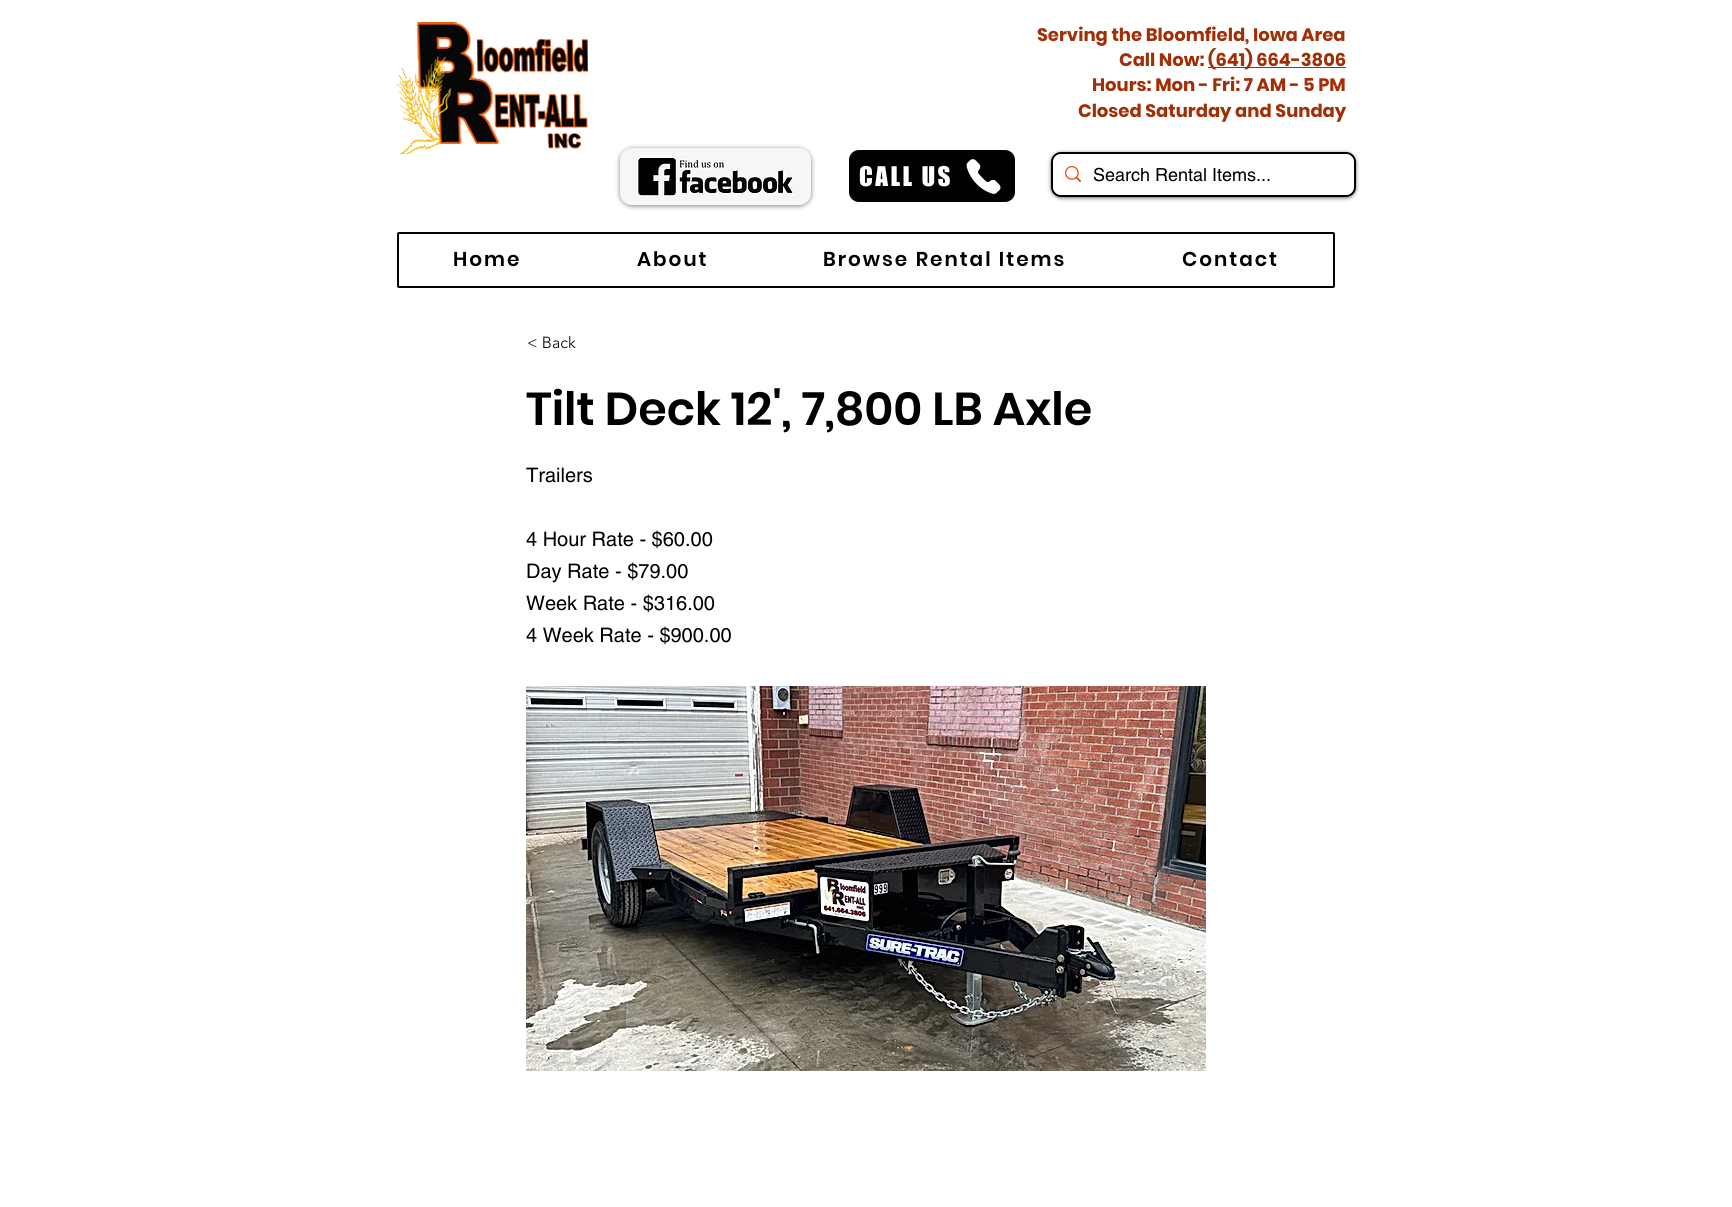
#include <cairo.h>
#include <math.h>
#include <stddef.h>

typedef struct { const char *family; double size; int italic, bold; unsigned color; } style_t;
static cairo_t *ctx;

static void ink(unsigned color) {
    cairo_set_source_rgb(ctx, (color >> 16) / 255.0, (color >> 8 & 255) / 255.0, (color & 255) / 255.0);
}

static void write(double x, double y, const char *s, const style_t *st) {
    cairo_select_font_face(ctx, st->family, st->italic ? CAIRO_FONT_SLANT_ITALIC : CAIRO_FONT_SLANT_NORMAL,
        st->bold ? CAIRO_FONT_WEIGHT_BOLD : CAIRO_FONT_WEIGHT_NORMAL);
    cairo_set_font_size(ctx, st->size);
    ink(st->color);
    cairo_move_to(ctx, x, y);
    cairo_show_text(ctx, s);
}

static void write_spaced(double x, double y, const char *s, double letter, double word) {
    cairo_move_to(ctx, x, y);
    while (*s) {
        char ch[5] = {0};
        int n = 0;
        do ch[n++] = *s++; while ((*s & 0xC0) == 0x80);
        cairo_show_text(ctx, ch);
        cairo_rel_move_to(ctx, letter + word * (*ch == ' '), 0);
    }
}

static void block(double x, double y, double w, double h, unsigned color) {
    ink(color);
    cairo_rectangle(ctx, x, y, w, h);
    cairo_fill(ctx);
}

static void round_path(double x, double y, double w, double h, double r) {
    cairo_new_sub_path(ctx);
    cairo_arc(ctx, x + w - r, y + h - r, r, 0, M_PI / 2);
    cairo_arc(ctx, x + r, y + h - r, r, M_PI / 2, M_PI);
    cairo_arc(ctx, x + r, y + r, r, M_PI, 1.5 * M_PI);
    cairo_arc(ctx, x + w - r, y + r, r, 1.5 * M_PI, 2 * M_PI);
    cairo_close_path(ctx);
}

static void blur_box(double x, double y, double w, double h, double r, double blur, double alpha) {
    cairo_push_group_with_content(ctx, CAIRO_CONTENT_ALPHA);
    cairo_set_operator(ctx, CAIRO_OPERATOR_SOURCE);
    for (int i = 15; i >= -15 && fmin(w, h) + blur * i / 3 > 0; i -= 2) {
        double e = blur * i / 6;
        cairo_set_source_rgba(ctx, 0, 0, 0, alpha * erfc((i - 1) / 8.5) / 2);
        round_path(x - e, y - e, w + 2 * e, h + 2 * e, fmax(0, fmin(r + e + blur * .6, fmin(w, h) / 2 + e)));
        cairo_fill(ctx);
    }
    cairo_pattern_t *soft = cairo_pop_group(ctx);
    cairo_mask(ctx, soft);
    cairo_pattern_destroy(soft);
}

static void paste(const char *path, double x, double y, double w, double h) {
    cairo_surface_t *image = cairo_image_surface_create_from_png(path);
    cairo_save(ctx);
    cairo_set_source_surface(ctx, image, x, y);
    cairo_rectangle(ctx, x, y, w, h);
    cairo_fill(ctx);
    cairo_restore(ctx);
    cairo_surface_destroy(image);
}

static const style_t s1 = {"Poppins", 18, 0, 1, 0xa22e05};
static const style_t s2 = {"helvetica", 18, 0, 0, 0x000000};
static const style_t s3 = {"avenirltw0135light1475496 Light", 16, 0, 0, 0x000000};
static const style_t s4 = {"Poppins SemiBold", 46, 0, 0, 0x000000};
static const style_t s5 = {"helvetica", 20, 0, 0, 0x000000};

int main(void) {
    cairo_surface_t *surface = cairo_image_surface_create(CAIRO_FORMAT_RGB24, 1732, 1207);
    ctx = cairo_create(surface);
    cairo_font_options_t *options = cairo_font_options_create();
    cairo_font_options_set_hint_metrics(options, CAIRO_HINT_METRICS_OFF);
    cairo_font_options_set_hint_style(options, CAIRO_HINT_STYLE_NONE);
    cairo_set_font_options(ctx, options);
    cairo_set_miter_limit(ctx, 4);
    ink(0xffffff);
    cairo_paint(ctx);
    paste("pic1.png", 397, 22, 191, 132);
    write(1037, 41, "Serving the Bloomfield, Iowa Area", &s1);
    write(1119, 66, "Call Now:", &s1);
    block(1208, 67, 138, 1, 0xa22e05);
    write(1208, 66, "(641) 664-3806", &s1);
    write(1092, 91, "Hours: Mon - Fri: 7 AM - 5 PM", &s1);
    write(1078, 117, "Closed Saturday and Sunday", &s1);
    ink(0x000000);
    blur_box(620, 149, 191, 57, 12, 2.5, 0.5);
    paste("pic2.png", 620, 148, 191, 57);
    ink(0x000000);
    round_path(849, 150, 166, 52, 10);
    cairo_fill(ctx);
    cairo_select_font_face(ctx, "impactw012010", CAIRO_FONT_SLANT_NORMAL, CAIRO_FONT_WEIGHT_NORMAL);
    cairo_set_font_size(ctx, 25);
    ink(0xffffff);
    write_spaced(859, 186, "CALL US", 2.5, 0);
    paste("pic3.png", 966, 159, 35, 35);
    ink(0x000000);
    blur_box(1051, 153, 305, 45, 10, 2, 0.6);
    round_path(1052, 153, 303, 43, 9);
    ink(0x000000);
    cairo_stroke(ctx);
    ink(0xffffff);
    round_path(1053, 154, 301, 41, 8);
    cairo_fill(ctx);
    paste("pic4.png", 1065, 166, 16, 17);
    write(1093, 181, "Search Rental Items...", &s2);
    round_path(398, 233, 936, 54, 1);
    cairo_stroke(ctx);
    cairo_select_font_face(ctx, "Poppins SemiBold", CAIRO_FONT_SLANT_NORMAL, CAIRO_FONT_WEIGHT_NORMAL);
    cairo_set_font_size(ctx, 20);
    write_spaced(453, 266, "Home", 2, 0);
    write_spaced(637, 266, "About", 2, 0);
    write_spaced(823, 266, "Browse Rental Items", 2, 0);
    write_spaced(1182, 266, "Contact", 2, 0);
    write(527, 348, "< Back", &s3);
    write(526, 425, "Tilt Deck 12', 7,800 LB Axle", &s4);
    write(526, 482, "Trailers", &s5);
    write(526, 546, "4 Hour Rate - $60.00", &s5);
    write(526, 578, "Day Rate - $79.00", &s5);
    write(526, 610, "Week Rate - $316.00", &s5);
    write(526, 642, "4 Week Rate - $900.00", &s5);
    paste("pic5.png", 526, 686, 680, 385);
    cairo_surface_write_to_png(surface, "screenshot.png");
    cairo_font_options_destroy(options);
    cairo_destroy(ctx);
    cairo_surface_destroy(surface);
    return 0;
}
